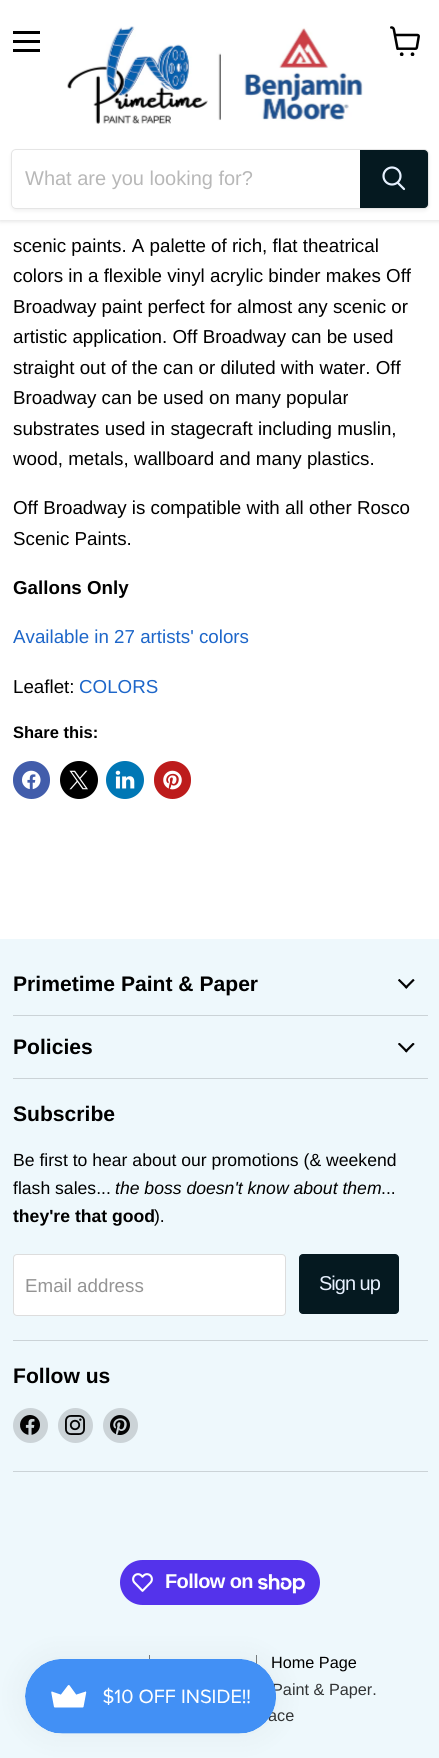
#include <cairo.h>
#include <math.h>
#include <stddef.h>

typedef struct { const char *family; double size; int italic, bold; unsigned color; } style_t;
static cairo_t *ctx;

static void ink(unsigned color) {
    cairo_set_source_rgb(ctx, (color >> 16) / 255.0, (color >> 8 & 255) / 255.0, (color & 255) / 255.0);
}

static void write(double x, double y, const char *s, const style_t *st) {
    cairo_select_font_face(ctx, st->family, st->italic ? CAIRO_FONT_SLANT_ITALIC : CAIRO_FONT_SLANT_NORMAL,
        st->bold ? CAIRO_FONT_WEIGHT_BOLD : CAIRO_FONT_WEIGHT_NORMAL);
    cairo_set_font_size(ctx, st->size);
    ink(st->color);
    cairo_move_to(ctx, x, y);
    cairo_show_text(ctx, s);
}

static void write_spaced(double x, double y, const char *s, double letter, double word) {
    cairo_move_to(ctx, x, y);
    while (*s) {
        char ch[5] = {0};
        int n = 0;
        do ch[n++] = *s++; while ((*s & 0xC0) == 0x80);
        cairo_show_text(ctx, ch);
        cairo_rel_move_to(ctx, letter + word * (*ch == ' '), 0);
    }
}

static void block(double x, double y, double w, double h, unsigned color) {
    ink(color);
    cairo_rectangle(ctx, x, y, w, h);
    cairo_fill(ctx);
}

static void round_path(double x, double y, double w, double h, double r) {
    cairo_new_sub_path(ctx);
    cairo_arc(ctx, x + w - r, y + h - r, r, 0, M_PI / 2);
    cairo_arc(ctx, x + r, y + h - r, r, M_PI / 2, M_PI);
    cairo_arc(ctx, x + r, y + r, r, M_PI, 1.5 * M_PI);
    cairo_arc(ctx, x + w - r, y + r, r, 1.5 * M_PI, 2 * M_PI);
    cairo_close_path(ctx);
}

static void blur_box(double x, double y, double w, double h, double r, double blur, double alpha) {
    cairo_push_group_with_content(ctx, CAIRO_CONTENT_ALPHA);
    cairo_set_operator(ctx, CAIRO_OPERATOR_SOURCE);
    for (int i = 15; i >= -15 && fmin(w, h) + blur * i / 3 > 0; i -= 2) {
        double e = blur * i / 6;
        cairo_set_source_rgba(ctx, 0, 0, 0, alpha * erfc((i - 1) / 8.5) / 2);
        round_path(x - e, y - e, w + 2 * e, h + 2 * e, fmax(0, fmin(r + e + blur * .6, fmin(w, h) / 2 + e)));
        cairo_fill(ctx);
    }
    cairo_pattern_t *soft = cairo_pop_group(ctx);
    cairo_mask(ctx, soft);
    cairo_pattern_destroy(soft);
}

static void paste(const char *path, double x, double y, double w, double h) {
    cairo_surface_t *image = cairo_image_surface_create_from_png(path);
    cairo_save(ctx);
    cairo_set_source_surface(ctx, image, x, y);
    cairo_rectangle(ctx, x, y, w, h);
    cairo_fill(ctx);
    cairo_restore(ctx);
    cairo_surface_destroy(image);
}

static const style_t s1 = {"Liberation Sans", 20, 0, 0, 0xb8b8b8};
static const style_t s2 = {"Liberation Sans", 18.75, 0, 0, 0x000000};
static const style_t s3 = {"Liberation Sans", 18.75, 0, 1, 0x000000};
static const style_t s4 = {"Liberation Sans", 18.75, 0, 0, 0x1d66c9};
static const style_t s5 = {"Liberation Sans", 16.5, 0, 1, 0x000000};
static const style_t s6 = {"Liberation Sans", 21.1, 0, 1, 0x000000};
static const style_t s7 = {"Liberation Sans", 17.6, 0, 0, 0x000000};
static const style_t s8 = {"Liberation Sans", 17.6, 1, 0, 0x000000};
static const style_t s9 = {"Liberation Sans", 17.6, 0, 1, 0x000000};
static const style_t s10 = {"Liberation Sans", 18.75, 0, 0, 0x949494};
static const style_t s11 = {"Liberation Sans", 16.25, 0, 0, 0x000000};
static const style_t s12 = {"Liberation Sans", 16.25, 0, 0, 0x323435};

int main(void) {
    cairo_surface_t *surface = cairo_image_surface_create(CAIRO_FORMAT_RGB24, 439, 1758);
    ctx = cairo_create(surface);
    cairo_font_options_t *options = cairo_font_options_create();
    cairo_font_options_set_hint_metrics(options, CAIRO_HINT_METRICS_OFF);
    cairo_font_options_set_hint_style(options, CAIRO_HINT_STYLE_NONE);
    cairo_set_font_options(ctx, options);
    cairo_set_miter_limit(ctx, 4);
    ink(0xffffff);
    cairo_paint(ctx);
    ink(0x808080);
    blur_box(0, 1, 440, 220, 0, 2.5, 0.25);
    block(0, 0, 439, 220, 0xffffff);
    block(13, 31, 27, 3, 0x000000);
    block(13, 40, 27, 3, 0x000000);
    block(13, 49, 27, 3, 0x000000);
    paste("pic1.png", 390, 26, 30, 30);
    paste("pic2.png", 67, 26, 296, 98);
    cairo_save(ctx);
    cairo_set_fill_rule(ctx, CAIRO_FILL_RULE_EVEN_ODD);
    cairo_new_path(ctx);
    cairo_move_to(ctx, 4, 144);
    cairo_line_to(ctx, 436, 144);
    cairo_line_to(ctx, 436, 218);
    cairo_line_to(ctx, 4, 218);
    cairo_close_path(ctx);
    cairo_move_to(ctx, 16, 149);
    cairo_line_to(ctx, 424, 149);
    cairo_curve_to(ctx, 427, 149, 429, 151, 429, 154);
    cairo_line_to(ctx, 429, 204);
    cairo_curve_to(ctx, 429, 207, 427, 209, 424, 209);
    cairo_line_to(ctx, 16, 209);
    cairo_curve_to(ctx, 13, 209, 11, 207, 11, 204);
    cairo_line_to(ctx, 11, 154);
    cairo_curve_to(ctx, 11, 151, 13, 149, 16, 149);
    cairo_close_path(ctx);
    cairo_clip(ctx);
    ink(0x808080);
    blur_box(11, 151, 418, 60, 5, 2, 0.11);
    cairo_restore(ctx);
    round_path(11.5, 149.5, 417, 59, 4.5);
    cairo_set_source_rgba(ctx, 0.502, 0.502, 0.502, 0.2);
    cairo_set_line_width(ctx, 1);
    cairo_stroke(ctx);
    write(25, 185, "What are you looking for?", &s1);
    ink(0x051920);
    cairo_new_path(ctx);
    cairo_move_to(ctx, 360.5, 150.5);
    cairo_line_to(ctx, 424, 150.5);
    cairo_curve_to(ctx, 426, 150.5, 427.5, 152, 427.5, 154);
    cairo_line_to(ctx, 427.5, 204);
    cairo_curve_to(ctx, 427.5, 206, 426, 207.5, 424, 207.5);
    cairo_line_to(ctx, 360.5, 207.5);
    cairo_close_path(ctx);
    cairo_fill_preserve(ctx);
    cairo_stroke(ctx);
    cairo_new_path(ctx);
    cairo_move_to(ctx, 404, 189);
    cairo_line_to(ctx, 398, 183);
    ink(0xe7f1ff);
    cairo_set_line_width(ctx, 2.2);
    cairo_set_line_cap(ctx, CAIRO_LINE_CAP_ROUND);
    cairo_stroke(ctx);
    cairo_arc(ctx, 392, 176, 8.5, 0, 2 * M_PI);
    cairo_set_line_cap(ctx, CAIRO_LINE_CAP_BUTT);
    cairo_stroke(ctx);
    write(13, 252, "scenic paints. A palette of rich, flat theatrical", &s2);
    write(13, 282, "colors in a flexible vinyl acrylic binder makes Off", &s2);
    write(13, 313, "Broadway paint perfect for almost any scenic or", &s2);
    write(13, 343, "artistic application. Off Broadway can be used", &s2);
    write(13, 374, "straight out of the can or diluted with water. Off", &s2);
    write(13, 404, "Broadway can be used on many popular", &s2);
    write(13, 435, "substrates used in stagecraft including muslin,", &s2);
    write(13, 465, "wood, metals, wallboard and many plastics.", &s2);
    write(13, 514, "Off Broadway is compatible with all other Rosco", &s2);
    write(13, 545, "Scenic Paints.", &s2);
    write(13, 594, "Gallons Only", &s3);
    write(13, 643, "Available in 27 artists' colors", &s4);
    write(13, 693, "Leaflet:", &s2);
    write(79, 693, "COLORS", &s4);
    write(13, 738, "Share this:", &s5);
    ink(0x425dab);
    round_path(13, 761, 37, 38, 18.5);
    cairo_fill(ctx);
    paste("pic3.png", 22, 770, 19, 20);
    ink(0x000000);
    cairo_arc(ctx, 79, 780, 19, 0, 2 * M_PI);
    cairo_fill(ctx);
    paste("pic4.png", 69, 770, 19, 20);
    ink(0x0077b5);
    cairo_arc(ctx, 125, 780, 19, 0, 2 * M_PI);
    cairo_fill(ctx);
    paste("pic5.png", 115, 770, 20, 19);
    ink(0xbd1c1c);
    round_path(154, 761, 37, 38, 18.5);
    cairo_fill(ctx);
    paste("pic6.png", 163, 770, 19, 20);
    block(0, 939, 439, 819, 0xeef8fc);
    block(13, 1015, 415, 1, 0xcbd3d7);
    write(13, 991, "Primetime Paint & Paper", &s6);
    paste("pic7.png", 398, 979, 17, 10);
    block(13, 1078, 415, 1, 0xcbd3d7);
    write(13, 1054, "Policies", &s6);
    paste("pic8.png", 398, 1043, 17, 10);
    block(13, 1340, 415, 1, 0xcbd3d7);
    write(13, 1121, "Subscribe", &s6);
    write(13, 1166, "Be first to hear about our promotions (& weekend", &s7);
    write(13, 1194, "flash sales...", &s7);
    write(115, 1194, "the boss doesn't know about them", &s8);
    write(381, 1194, "...", &s7);
    write(13, 1222, "they're that good", &s9);
    write(154, 1222, ").", &s7);
    ink(0xffffff);
    round_path(13.5, 1254.5, 272, 61, 3.5);
    cairo_fill_preserve(ctx);
    ink(0xdddddd);
    cairo_set_line_width(ctx, 1);
    cairo_stroke(ctx);
    write(25, 1292, "Email address", &s10);
    ink(0x051920);
    round_path(299.5, 1254.5, 99, 59, 3.5);
    cairo_fill_preserve(ctx);
    cairo_stroke(ctx);
    cairo_set_font_size(ctx, 20);
    ink(0xe7f1ff);
    write_spaced(319, 1290, "Sign up", -1, 0);
    block(13, 1471, 415, 1, 0xcbd3d7);
    write(13, 1383, "Follow us", &s6);
    ink(0xcbd3d7);
    cairo_new_path(ctx);
    cairo_arc(ctx, 30.5, 1425.5, 17.5, 0, 2 * M_PI);
    cairo_fill(ctx);
    paste("pic9.png", 20, 1415, 20, 20);
    cairo_arc(ctx, 75.5, 1425.5, 17.5, 0, 2 * M_PI);
    cairo_fill(ctx);
    paste("pic10.png", 65, 1415, 20, 20);
    cairo_arc(ctx, 120.5, 1425.5, 17.5, 0, 2 * M_PI);
    cairo_fill(ctx);
    paste("pic11.png", 110, 1415, 20, 20);
    ink(0x5433eb);
    round_path(120, 1560, 200, 45, 22.5);
    cairo_fill(ctx);
    paste("pic12.png", 132, 1573, 21, 19);
    cairo_set_font_size(ctx, 20);
    ink(0xffffff);
    write_spaced(165, 1588, "Follow on", -0.6, 0);
    paste("pic13.png", 258, 1574, 47, 20);
    block(149, 1655, 1, 4, 0x797e80);
    block(256, 1655, 1, 9, 0x797e80);
    write(271, 1668, "Home Page", &s11);
    write(272, 1695, "Paint & Paper.", &s12);
    write(268, 1721, "ace", &s12);
    ink(0x000000);
    blur_box(25, 1659, 251, 75, 37.5, 15.5, 0.05);
    paste("pic14.png", 25, 1659, 251, 75);
    cairo_surface_write_to_png(surface, "screenshot.png");
    cairo_font_options_destroy(options);
    cairo_destroy(ctx);
    cairo_surface_destroy(surface);
    return 0;
}
